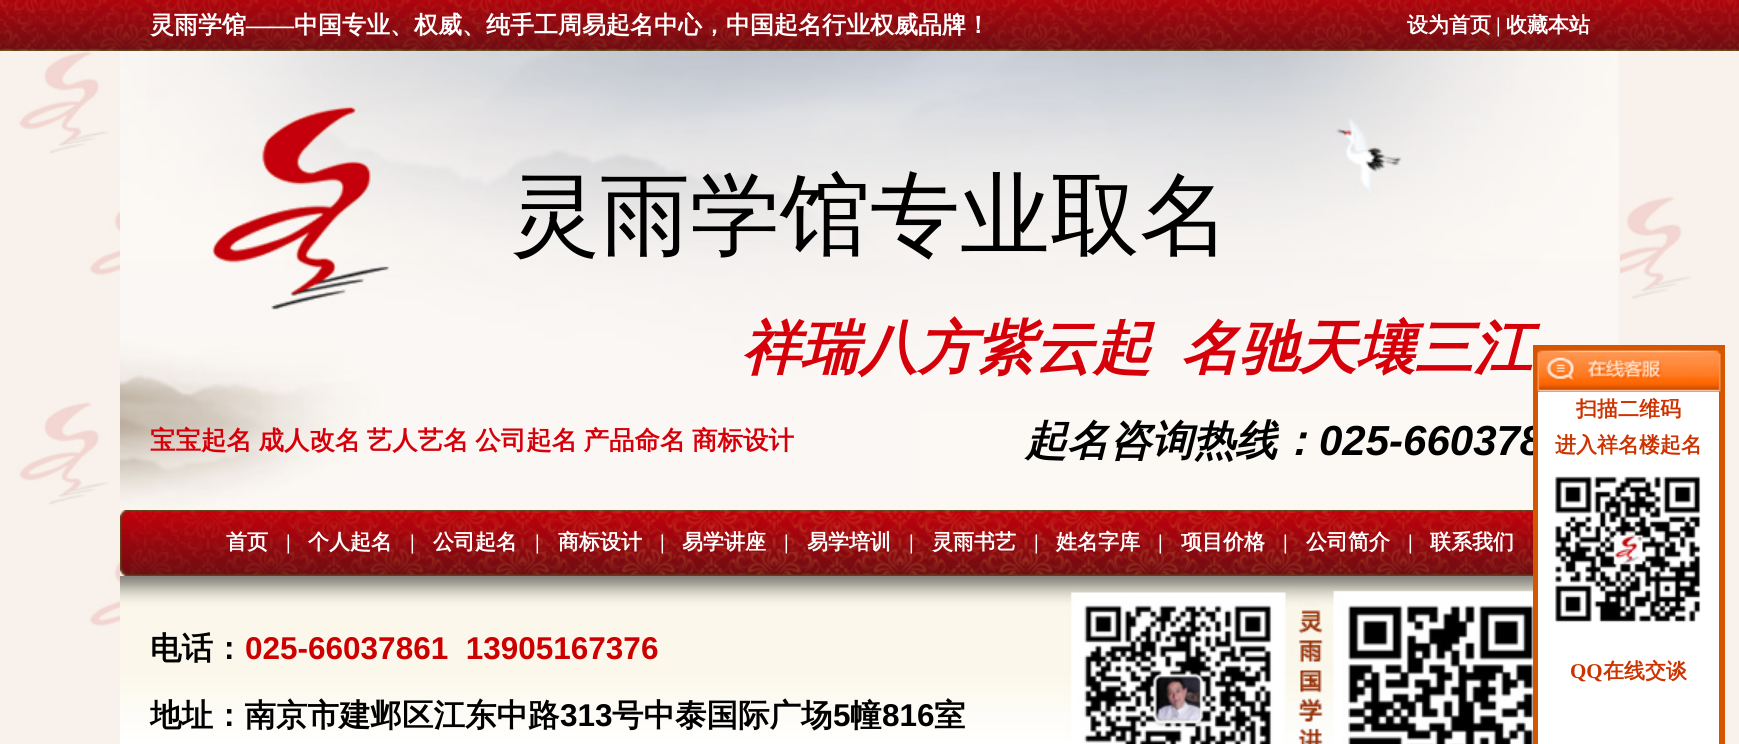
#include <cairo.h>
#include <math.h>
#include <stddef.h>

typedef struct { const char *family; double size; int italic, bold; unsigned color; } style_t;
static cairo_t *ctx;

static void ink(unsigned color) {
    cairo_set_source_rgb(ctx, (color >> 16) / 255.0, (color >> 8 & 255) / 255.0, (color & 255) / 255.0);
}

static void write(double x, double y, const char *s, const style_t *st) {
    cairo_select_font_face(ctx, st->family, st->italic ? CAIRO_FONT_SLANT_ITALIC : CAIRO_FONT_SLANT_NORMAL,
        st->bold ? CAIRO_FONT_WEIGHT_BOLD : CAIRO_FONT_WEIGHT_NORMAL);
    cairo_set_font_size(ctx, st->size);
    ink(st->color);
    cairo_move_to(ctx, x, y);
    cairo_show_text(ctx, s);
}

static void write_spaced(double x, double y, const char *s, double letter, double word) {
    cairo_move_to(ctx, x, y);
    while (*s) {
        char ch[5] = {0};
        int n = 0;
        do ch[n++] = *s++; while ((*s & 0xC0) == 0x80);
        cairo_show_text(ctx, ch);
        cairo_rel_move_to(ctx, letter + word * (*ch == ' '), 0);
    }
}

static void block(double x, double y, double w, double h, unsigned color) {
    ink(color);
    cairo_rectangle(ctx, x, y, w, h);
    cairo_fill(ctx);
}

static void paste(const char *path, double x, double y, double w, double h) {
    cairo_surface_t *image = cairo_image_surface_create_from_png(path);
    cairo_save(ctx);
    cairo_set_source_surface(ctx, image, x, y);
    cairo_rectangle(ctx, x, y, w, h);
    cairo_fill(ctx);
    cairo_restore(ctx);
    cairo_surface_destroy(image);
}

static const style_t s1 = {"WenQuanYi Zen Hei", 24, 0, 1, 0xffffff};
static const style_t s2 = {"Liberation Serif", 24, 0, 1, 0xffffff};
static const style_t s3 = {"WenQuanYi Zen Hei", 21, 0, 1, 0xffffff};
static const style_t s4 = {"Liberation Serif", 21, 0, 1, 0xffffff};
static const style_t s5 = {"WenQuanYi Zen Hei Medium", 90, 0, 0, 0x000000};
static const style_t s6 = {"WenQuanYi Zen Hei", 58.5, 1, 1, 0xd50009};
static const style_t s7 = {"WenQuanYi Zen Hei", 42, 1, 1, 0x000000};
static const style_t s8 = {"Liberation Sans", 42, 1, 1, 0x000000};
static const style_t s9 = {"WenQuanYi Zen Hei", 21, 0, 1, 0xcc3300};
static const style_t s10 = {"Liberation Serif", 21, 0, 1, 0xcc3300};
static const style_t s11 = {"WenQuanYi Zen Hei", 31.5, 0, 1, 0x000000};
static const style_t s12 = {"Liberation Sans", 31.5, 0, 1, 0xcc0000};
static const style_t s13 = {"Liberation Sans", 31.5, 0, 1, 0x000000};

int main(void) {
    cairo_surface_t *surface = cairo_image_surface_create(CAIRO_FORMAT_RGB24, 1739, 744);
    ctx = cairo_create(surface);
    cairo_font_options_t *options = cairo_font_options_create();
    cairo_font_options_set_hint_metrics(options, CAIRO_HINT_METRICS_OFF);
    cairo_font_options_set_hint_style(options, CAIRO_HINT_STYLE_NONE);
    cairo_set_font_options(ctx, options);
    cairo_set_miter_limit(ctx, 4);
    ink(0xffffff);
    cairo_paint(ctx);
    paste("pic1.png", 0, 51, 1739, 693);
    paste("pic2.png", 0, 0, 1739, 51);
    write(150, 33, "灵雨学馆", &s1);
    write(246, 33, "——", &s2);
    write(294, 33, "中国专业、权威、纯手工周易起名中心，中国起名行业权威品牌！", &s1);
    write(1407, 32, "设为首页", &s3);
    write(1496, 32, "|", &s4);
    write(1506, 32, "收藏本站", &s3);
    paste("pic3.png", 120, 51, 1500, 459);
    write(510, 246, "灵雨学馆专业取名", &s5);
    write(742, 368, "祥瑞八方紫云起", &s6);
    write(1181, 368, "名驰天壤三江", &s6);
    cairo_select_font_face(ctx, "WenQuanYi Zen Hei", CAIRO_FONT_SLANT_NORMAL, CAIRO_FONT_WEIGHT_BOLD);
    cairo_set_font_size(ctx, 25.5);
    write_spaced(150, 449, "宝宝起名 成人改名 艺人艺名 公司起名 产品命名 商标设计", 0, -1.25);
    write(1025, 455, "起名咨询热线：", &s7);
    write(1319, 455, "025-660378", &s8);
    paste("pic4.png", 120, 510, 1413, 66);
    write(226, 549, "首页", &s3);
    write(286, 549, "|", &s4);
    write(308, 549, "个人起名", &s3);
    write(410, 549, "|", &s4);
    write(433, 549, "公司起名", &s3);
    write(535, 549, "|", &s4);
    write(558, 549, "商标设计", &s3);
    write(660, 549, "|", &s4);
    write(682, 549, "易学讲座", &s3);
    write(784, 549, "|", &s4);
    write(807, 549, "易学培训", &s3);
    write(909, 549, "|", &s4);
    write(932, 549, "灵雨书艺", &s3);
    write(1034, 549, "|", &s4);
    write(1056, 549, "姓名字库", &s3);
    write(1158, 549, "|", &s4);
    write(1181, 549, "项目价格", &s3);
    write(1283, 549, "|", &s4);
    write(1306, 549, "公司简介", &s3);
    write(1408, 549, "|", &s4);
    write(1430, 549, "联系我们", &s3);
    block(1533, 345, 192, 399, 0xd65500);
    paste("pic5.png", 1537, 350, 184, 42);
    block(1538, 392, 181, 352, 0xffffff);
    write(1576, 416, "扫描二维码", &s9);
    write(1555, 452, "进入祥名楼起名", &s9);
    paste("pic6.png", 1555, 476, 146, 147);
    write(1570, 678, "QQ", &s10);
    write(1603, 678, "在线交谈", &s9);
    paste("pic7.png", 120, 576, 1413, 168);
    write(150, 659, "电话：", &s11);
    write(245, 659, "025-66037861  13905167376", &s12);
    write(150, 726, "地址：南京市建邺区江东中路", &s11);
    write(560, 726, "313", &s13);
    write(612, 726, "号中泰国际广场", &s11);
    write(833, 726, "5", &s13);
    write(850, 726, "幢", &s11);
    write(882, 726, "816", &s13);
    write(934, 726, "室", &s11);
    cairo_surface_write_to_png(surface, "screenshot.png");
    cairo_font_options_destroy(options);
    cairo_destroy(ctx);
    cairo_surface_destroy(surface);
    return 0;
}
